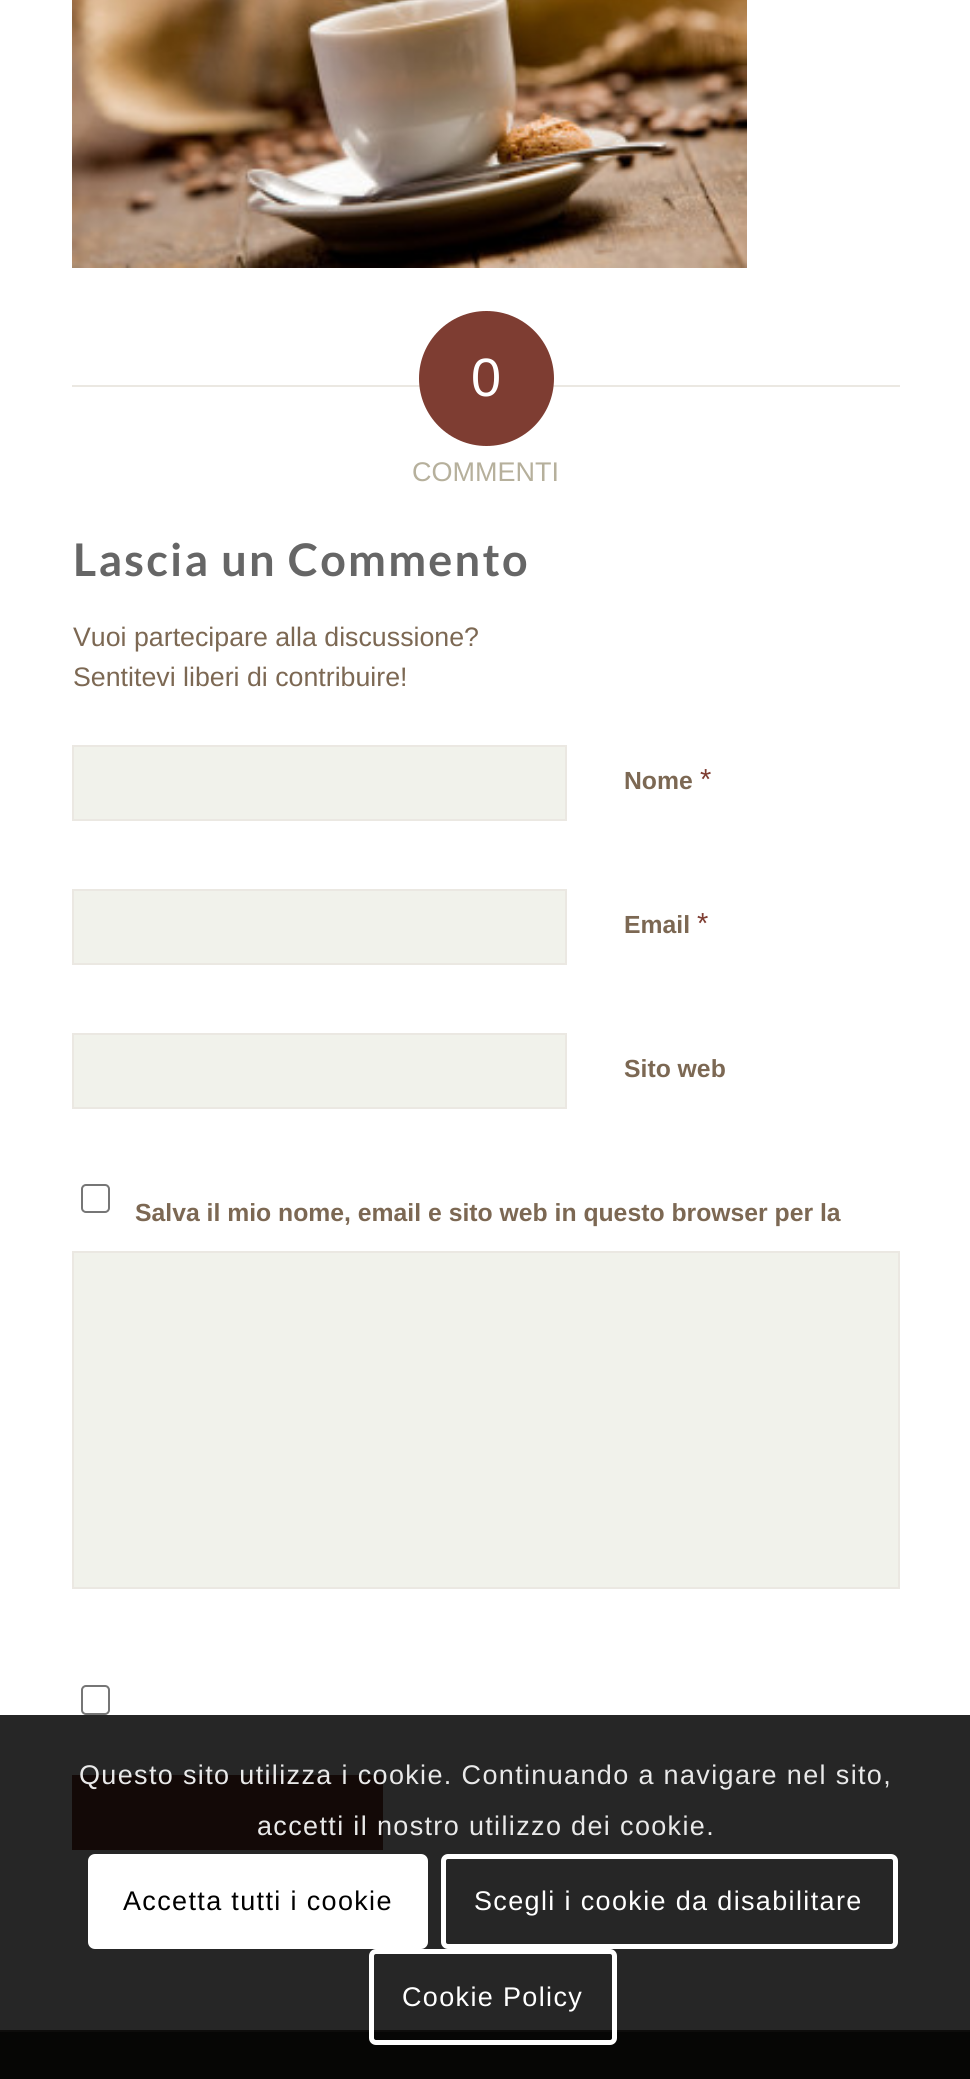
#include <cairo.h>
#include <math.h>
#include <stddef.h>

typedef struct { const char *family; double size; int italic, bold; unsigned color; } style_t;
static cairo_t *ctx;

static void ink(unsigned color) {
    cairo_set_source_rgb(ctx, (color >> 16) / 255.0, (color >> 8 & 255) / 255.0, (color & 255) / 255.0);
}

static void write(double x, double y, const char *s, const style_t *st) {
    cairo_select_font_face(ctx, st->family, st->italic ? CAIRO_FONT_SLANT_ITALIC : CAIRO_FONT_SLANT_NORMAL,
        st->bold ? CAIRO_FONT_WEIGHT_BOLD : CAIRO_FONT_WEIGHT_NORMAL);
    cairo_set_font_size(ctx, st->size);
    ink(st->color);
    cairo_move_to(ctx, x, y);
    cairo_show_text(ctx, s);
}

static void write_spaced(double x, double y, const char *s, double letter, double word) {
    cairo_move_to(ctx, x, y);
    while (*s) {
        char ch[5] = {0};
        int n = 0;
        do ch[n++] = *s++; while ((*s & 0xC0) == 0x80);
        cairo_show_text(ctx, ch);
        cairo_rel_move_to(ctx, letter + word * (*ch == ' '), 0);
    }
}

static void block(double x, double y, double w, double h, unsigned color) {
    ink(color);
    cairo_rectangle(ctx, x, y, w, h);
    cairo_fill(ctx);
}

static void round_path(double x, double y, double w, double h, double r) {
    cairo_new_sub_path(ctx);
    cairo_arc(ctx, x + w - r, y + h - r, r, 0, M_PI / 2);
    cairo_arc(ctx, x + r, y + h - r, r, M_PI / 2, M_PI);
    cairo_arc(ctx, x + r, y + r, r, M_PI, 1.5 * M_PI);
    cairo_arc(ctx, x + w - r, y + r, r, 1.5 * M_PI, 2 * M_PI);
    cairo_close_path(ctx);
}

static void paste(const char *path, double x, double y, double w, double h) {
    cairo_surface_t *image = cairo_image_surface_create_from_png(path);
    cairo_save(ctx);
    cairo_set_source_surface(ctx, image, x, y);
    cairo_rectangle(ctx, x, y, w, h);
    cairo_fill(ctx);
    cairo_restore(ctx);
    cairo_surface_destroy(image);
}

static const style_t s1 = {"Liberation Sans", 54, 0, 0, 0xffffff};
static const style_t s2 = {"Liberation Sans", 27, 0, 0, 0xb6b09c};
static const style_t s3 = {"Liberation Sans", 26.75, 0, 0, 0x7c6853};
static const style_t s4 = {"Liberation Sans", 24.75, 0, 1, 0x7c6853};
static const style_t s5 = {"Liberation Sans", 29, 0, 0, 0x7e3d32};

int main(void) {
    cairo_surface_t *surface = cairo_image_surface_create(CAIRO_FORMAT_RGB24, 970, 2079);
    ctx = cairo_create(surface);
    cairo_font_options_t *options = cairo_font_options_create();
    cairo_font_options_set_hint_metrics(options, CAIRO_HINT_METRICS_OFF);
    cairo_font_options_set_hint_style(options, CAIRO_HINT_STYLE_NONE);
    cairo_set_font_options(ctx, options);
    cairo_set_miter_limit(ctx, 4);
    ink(0xffffff);
    cairo_paint(ctx);
    paste("pic1.png", 72, 0, 675, 268);
    block(72, 385, 349, 2, 0xebe8e2);
    block(551, 385, 349, 2, 0xebe8e2);
    ink(0x7e3d32);
    cairo_arc(ctx, 486.5, 378.5, 67.5, 0, 2 * M_PI);
    cairo_fill(ctx);
    write(471, 396, "0", &s1);
    write(412, 481, "COMMENTI", &s2);
    cairo_select_font_face(ctx, "Lato", CAIRO_FONT_SLANT_NORMAL, CAIRO_FONT_WEIGHT_BOLD);
    cairo_set_font_size(ctx, 45);
    ink(0x666666);
    write_spaced(73, 576, "Lascia un Commento", 2.25, 0);
    write(73, 646, "Vuoi partecipare alla discussione?", &s3);
    write(73, 686, "Sentitevi liberi di contribuire!", &s3);
    ink(0xf1f2eb);
    cairo_rectangle(ctx, 73, 746, 493, 74);
    cairo_fill_preserve(ctx);
    ink(0xebe8e2);
    cairo_stroke(ctx);
    write(624, 789, "Nome", &s4);
    write(700, 789, "*", &s5);
    ink(0xf1f2eb);
    cairo_rectangle(ctx, 73, 890, 493, 74);
    cairo_fill_preserve(ctx);
    ink(0xebe8e2);
    cairo_stroke(ctx);
    write(624, 933, "Email", &s4);
    write(697, 933, "*", &s5);
    ink(0xf1f2eb);
    cairo_rectangle(ctx, 73, 1034, 493, 74);
    cairo_fill_preserve(ctx);
    ink(0xebe8e2);
    cairo_stroke(ctx);
    write(624, 1077, "Sito web", &s4);
    round_path(82, 1185, 27, 27, 4);
    ink(0x767676);
    cairo_stroke(ctx);
    write(135, 1221, "Salva il mio nome, email e sito web in questo browser per la", &s4);
    ink(0xf1f2eb);
    cairo_rectangle(ctx, 73, 1252, 826, 336);
    cairo_fill_preserve(ctx);
    ink(0xebe8e2);
    cairo_stroke(ctx);
    round_path(82, 1686, 27, 28, 4);
    ink(0x767676);
    cairo_stroke(ctx);
    block(72, 1775, 311, 75, 0x7e3d32);
    block(0, 2032, 970, 47, 0x2b2822);
    block(0, 2030, 970, 2, 0x575149);
    cairo_set_source_rgba(ctx, 0, 0, 0, 0.85);
    cairo_rectangle(ctx, 0, 1715, 970, 364);
    cairo_fill(ctx);
    cairo_select_font_face(ctx, "Liberation Sans", CAIRO_FONT_SLANT_NORMAL, CAIRO_FONT_WEIGHT_NORMAL);
    cairo_set_font_size(ctx, 27);
    ink(0xe9e9e9);
    write_spaced(79, 1784, "Questo sito utilizza i cookie. Continuando a navigare nel sito,", 1.35, 0);
    write_spaced(257, 1835, "accetti il nostro utilizzo dei cookie.", 1.35, 0);
    ink(0xffffff);
    round_path(88, 1854, 340, 95, 7);
    cairo_fill(ctx);
    ink(0x000000);
    write_spaced(123, 1910, "Accetta tutti i cookie", 1.35, 0);
    round_path(443.5, 1856.5, 452, 90, 4.5);
    ink(0xffffff);
    cairo_set_line_width(ctx, 5);
    cairo_stroke(ctx);
    write_spaced(474, 1910, "Scegli i cookie da disabilitare", 1.35, 0);
    round_path(371.5, 1951.5, 243, 91, 4.5);
    cairo_stroke(ctx);
    write_spaced(402, 2006, "Cookie Policy", 1.35, 0);
    cairo_surface_write_to_png(surface, "screenshot.png");
    cairo_font_options_destroy(options);
    cairo_destroy(ctx);
    cairo_surface_destroy(surface);
    return 0;
}
